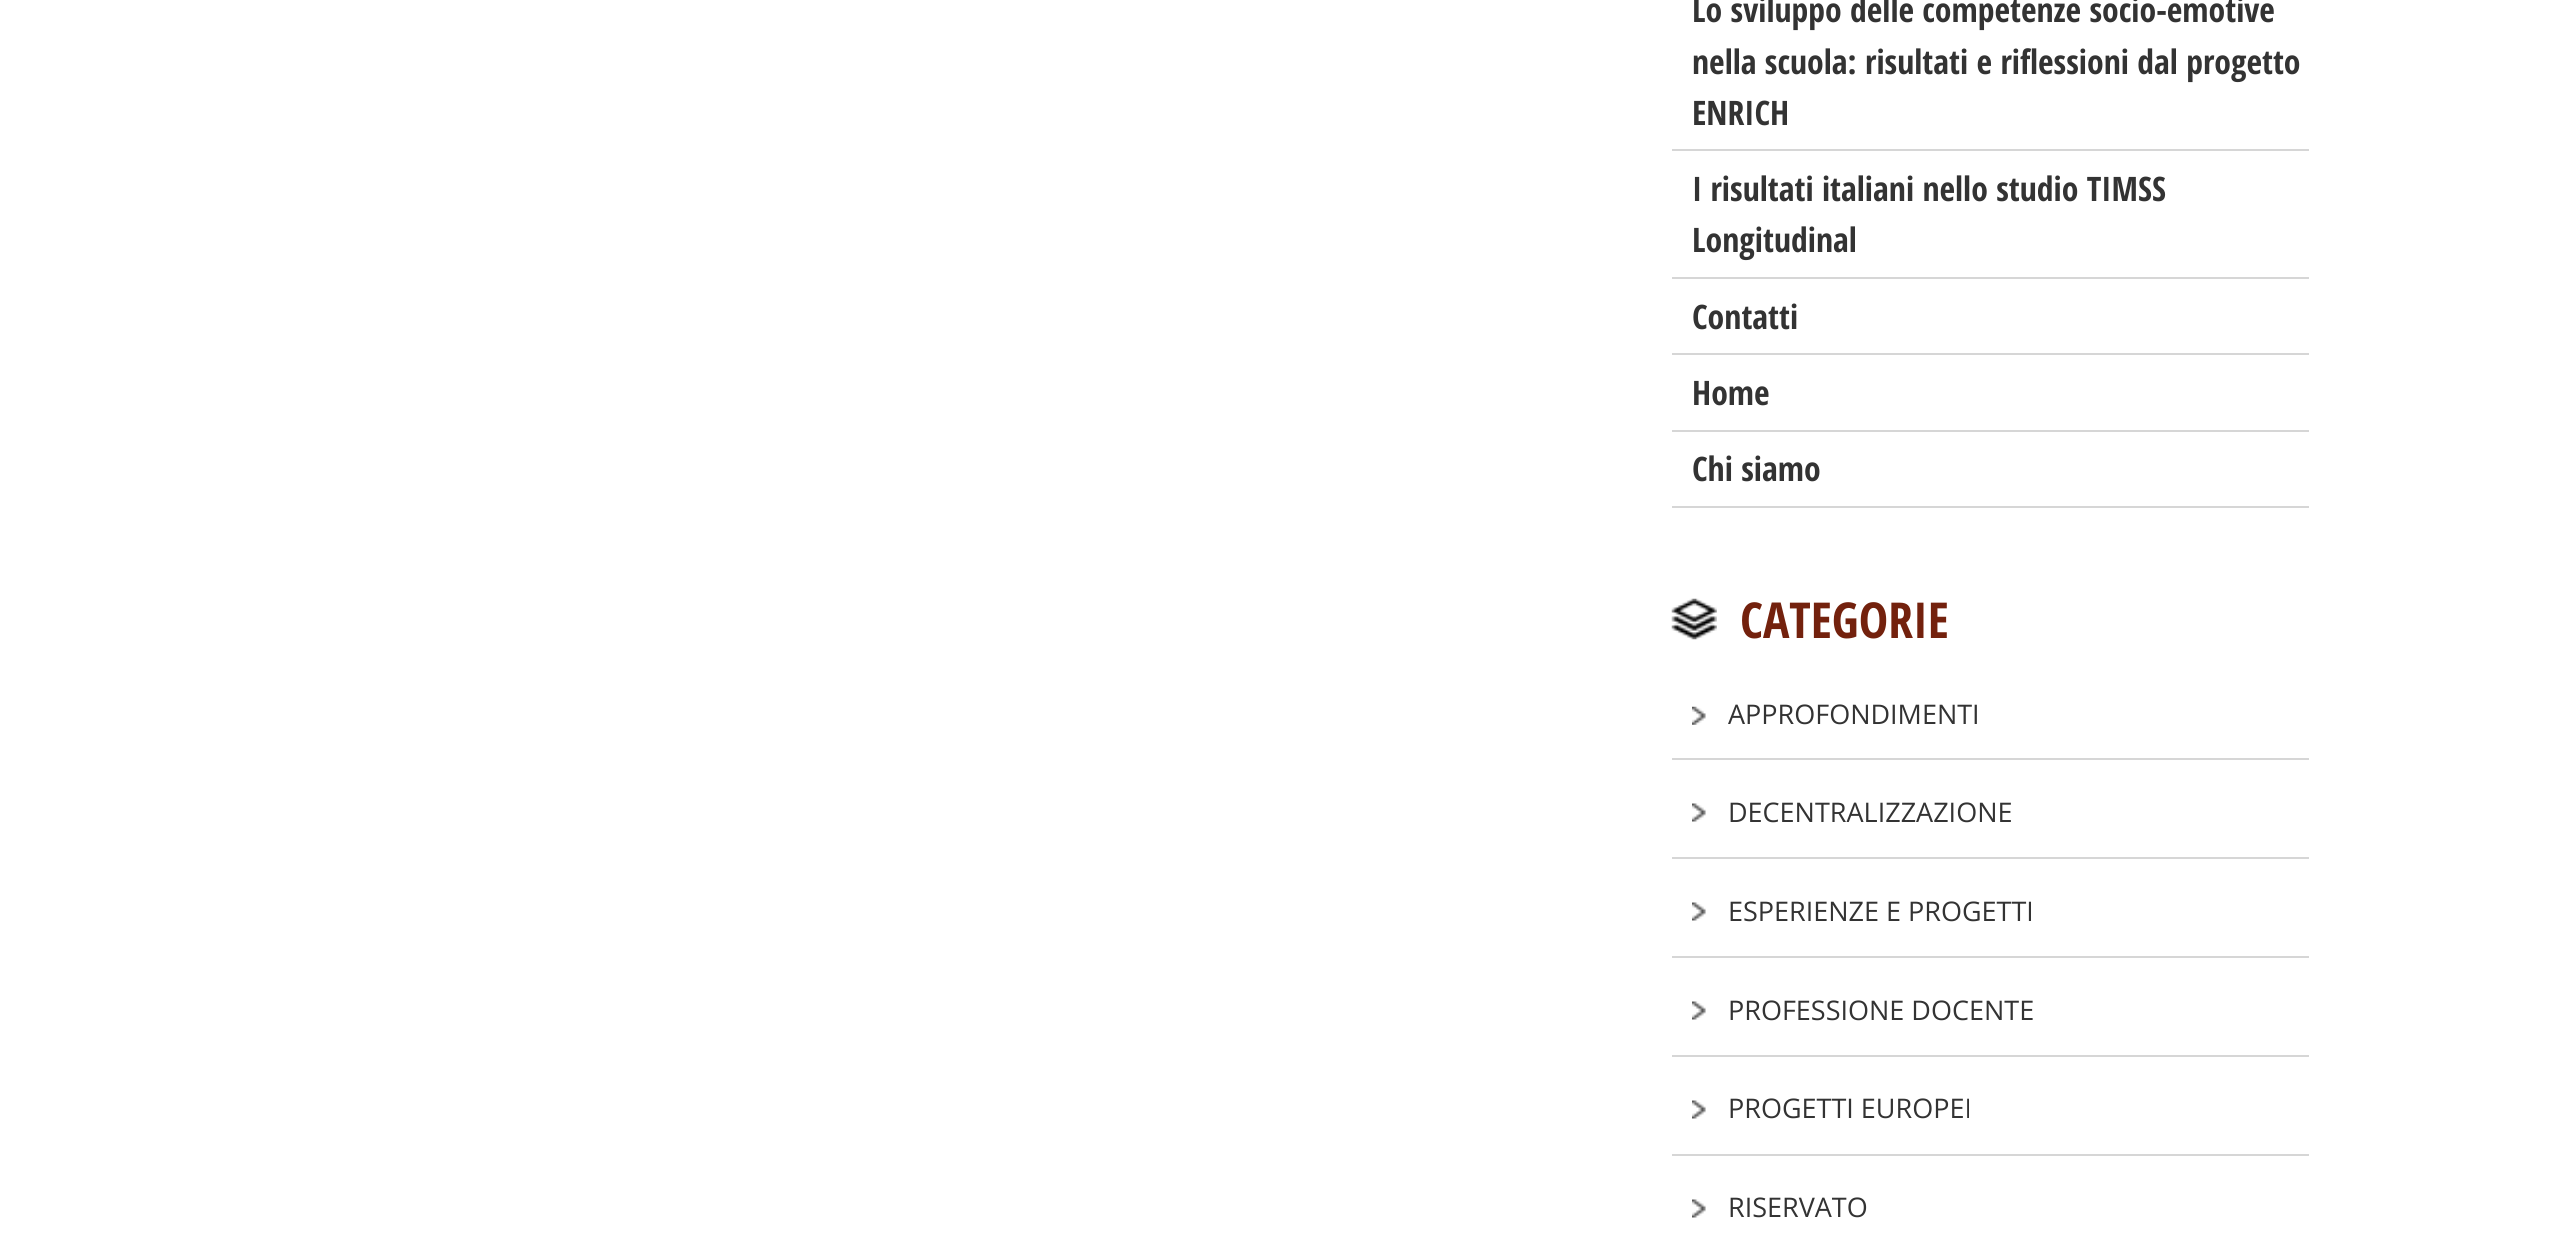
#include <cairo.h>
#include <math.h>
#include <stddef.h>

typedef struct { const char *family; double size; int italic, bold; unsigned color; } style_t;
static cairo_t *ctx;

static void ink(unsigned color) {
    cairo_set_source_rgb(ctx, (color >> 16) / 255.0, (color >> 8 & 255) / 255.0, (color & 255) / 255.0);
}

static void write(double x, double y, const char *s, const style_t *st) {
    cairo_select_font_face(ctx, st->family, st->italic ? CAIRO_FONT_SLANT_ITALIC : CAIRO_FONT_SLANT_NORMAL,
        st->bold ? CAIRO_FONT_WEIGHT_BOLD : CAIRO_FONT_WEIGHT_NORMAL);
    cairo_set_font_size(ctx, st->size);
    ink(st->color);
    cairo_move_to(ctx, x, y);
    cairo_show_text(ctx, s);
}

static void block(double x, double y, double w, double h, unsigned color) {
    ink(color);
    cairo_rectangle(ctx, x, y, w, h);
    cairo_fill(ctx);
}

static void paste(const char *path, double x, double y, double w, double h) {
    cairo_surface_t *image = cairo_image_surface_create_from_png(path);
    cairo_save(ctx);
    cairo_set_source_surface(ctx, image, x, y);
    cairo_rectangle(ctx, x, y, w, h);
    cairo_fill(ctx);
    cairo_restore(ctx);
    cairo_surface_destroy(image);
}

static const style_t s1 = {"Open Sans Condensed", 33.75, 0, 1, 0x333333};
static const style_t s2 = {"Open Sans Condensed", 49.5, 0, 1, 0x73210d};
static const style_t s3 = {"Open Sans", 27, 0, 0, 0x333333};

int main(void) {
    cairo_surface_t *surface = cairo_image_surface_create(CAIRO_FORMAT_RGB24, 2571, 1244);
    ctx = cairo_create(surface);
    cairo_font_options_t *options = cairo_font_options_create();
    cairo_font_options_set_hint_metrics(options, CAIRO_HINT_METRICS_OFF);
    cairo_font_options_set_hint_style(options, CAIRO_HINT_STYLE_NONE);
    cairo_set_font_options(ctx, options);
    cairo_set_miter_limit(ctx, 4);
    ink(0xffffff);
    cairo_paint(ctx);
    block(1672, 149, 637, 2, 0xd6d6d6);
    write(1692, 22, "Lo sviluppo delle competenze socio-emotive", &s1);
    write(1692, 74, "nella scuola: risultati e riflessioni dal progetto", &s1);
    write(1692, 125, "ENRICH", &s1);
    block(1672, 277, 637, 2, 0xd6d6d6);
    write(1692, 201, "I risultati italiani nello studio TIMSS", &s1);
    write(1692, 252, "Longitudinal", &s1);
    block(1672, 353, 637, 2, 0xd6d6d6);
    write(1692, 329, "Contatti", &s1);
    block(1672, 430, 637, 2, 0xd6d6d6);
    write(1692, 405, "Home", &s1);
    block(1672, 506, 637, 2, 0xd6d6d6);
    write(1692, 481, "Chi siamo", &s1);
    paste("pic1.png", 1671, 598, 46, 42);
    write(1740, 638, "CATEGORIE", &s2);
    block(1672, 758, 637, 2, 0xd6d6d6);
    paste("pic2.png", 1692, 706, 14, 19);
    write(1728, 724, "APPROFONDIMENTI", &s3);
    block(1672, 857, 637, 2, 0xd6d6d6);
    paste("pic3.png", 1692, 803, 14, 19);
    write(1728, 822, "DECENTRALIZZAZIONE", &s3);
    block(1672, 956, 637, 2, 0xd6d6d6);
    paste("pic3.png", 1692, 902, 14, 19);
    write(1728, 921, "ESPERIENZE E PROGETTI", &s3);
    block(1672, 1055, 637, 2, 0xd6d6d6);
    paste("pic3.png", 1692, 1001, 14, 19);
    write(1728, 1020, "PROFESSIONE DOCENTE", &s3);
    block(1672, 1154, 637, 2, 0xd6d6d6);
    paste("pic3.png", 1692, 1100, 14, 19);
    write(1728, 1118, "PROGETTI EUROPEI", &s3);
    paste("pic3.png", 1692, 1199, 14, 19);
    write(1728, 1217, "RISERVATO", &s3);
    cairo_surface_write_to_png(surface, "screenshot.png");
    cairo_font_options_destroy(options);
    cairo_destroy(ctx);
    cairo_surface_destroy(surface);
    return 0;
}
